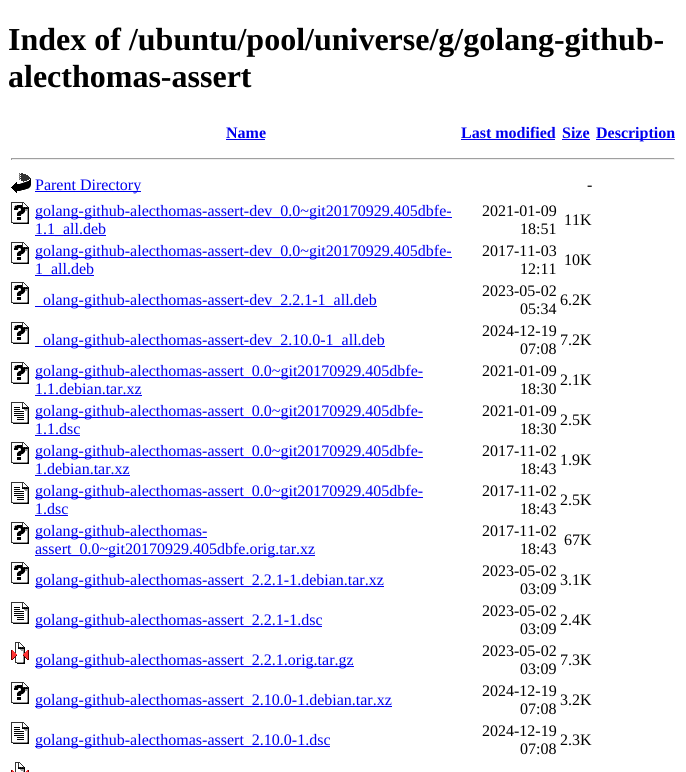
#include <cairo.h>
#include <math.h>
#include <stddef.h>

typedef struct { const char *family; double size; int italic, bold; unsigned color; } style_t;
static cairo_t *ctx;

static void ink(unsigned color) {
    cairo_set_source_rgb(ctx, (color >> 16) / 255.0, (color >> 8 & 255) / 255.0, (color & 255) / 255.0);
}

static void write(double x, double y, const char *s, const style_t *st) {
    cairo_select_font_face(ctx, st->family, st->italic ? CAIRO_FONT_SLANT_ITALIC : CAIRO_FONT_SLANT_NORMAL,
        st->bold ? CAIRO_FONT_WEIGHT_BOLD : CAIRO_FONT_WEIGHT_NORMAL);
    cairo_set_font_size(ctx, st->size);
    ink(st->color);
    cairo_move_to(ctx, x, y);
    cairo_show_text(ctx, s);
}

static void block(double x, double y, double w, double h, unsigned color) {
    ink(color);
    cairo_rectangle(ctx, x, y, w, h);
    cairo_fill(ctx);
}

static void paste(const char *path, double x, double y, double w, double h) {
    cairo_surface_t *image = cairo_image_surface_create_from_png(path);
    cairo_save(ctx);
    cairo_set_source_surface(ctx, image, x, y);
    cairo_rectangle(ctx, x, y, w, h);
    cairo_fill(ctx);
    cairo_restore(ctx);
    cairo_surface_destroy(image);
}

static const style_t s1 = {"Liberation Serif", 32, 0, 1, 0x000000};
static const style_t s2 = {"Liberation Serif", 16, 0, 1, 0x0000ee};
static const style_t s3 = {"Liberation Serif", 16, 0, 0, 0x0000ee};
static const style_t s4 = {"Liberation Serif", 16, 0, 0, 0x000000};

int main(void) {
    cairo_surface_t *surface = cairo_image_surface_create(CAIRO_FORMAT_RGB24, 686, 772);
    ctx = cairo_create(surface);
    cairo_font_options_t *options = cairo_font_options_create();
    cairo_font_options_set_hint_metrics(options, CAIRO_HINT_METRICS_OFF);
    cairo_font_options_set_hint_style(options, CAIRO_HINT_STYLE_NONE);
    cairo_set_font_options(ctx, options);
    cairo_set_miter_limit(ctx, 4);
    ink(0xffffff);
    cairo_paint(ctx);
    write(8, 50, "Index of /ubuntu/pool/universe/g/golang-github-", &s1);
    write(8, 87, "alecthomas-assert", &s1);
    write(226, 138, "Name", &s2);
    block(226, 139, 39, 1, 0x0000ee);
    write(461, 138, "Last modified", &s2);
    block(461, 139, 94, 1, 0x0000ee);
    write(562, 138, "Size", &s2);
    block(562, 139, 28, 1, 0x0000ee);
    block(596, 139, 79, 1, 0x0000ee);
    write(596, 138, "Description", &s2);
    block(11, 158, 664, 1, 0x9f9f9f);
    block(674, 158, 1, 2, 0xeeeeee);
    block(11, 159, 664, 1, 0xeeeeee);
    block(11, 158, 1, 2, 0x9f9f9f);
    paste("pic1.png", 11, 173, 20, 20);
    block(35, 191, 106, 1, 0x0000ee);
    write(35, 190, "Parent Directory", &s3);
    write(587, 190, "-", &s4);
    paste("pic2.png", 11, 202, 18, 22);
    block(35, 217, 417, 1, 0x0000ee);
    write(35, 216, "golang-github-alecthomas-assert-dev_0.0~git20170929.405dbfe-", &s3);
    block(35, 235, 71, 1, 0x0000ee);
    write(35, 234, "1.1_all.deb", &s3);
    write(482, 216, "2021-01-09", &s4);
    write(520, 234, "18:51", &s4);
    write(564, 225, "11K", &s4);
    paste("pic2.png", 11, 242, 18, 22);
    block(35, 257, 417, 1, 0x0000ee);
    write(35, 256, "golang-github-alecthomas-assert-dev_0.0~git20170929.405dbfe-", &s3);
    block(35, 275, 59, 1, 0x0000ee);
    write(35, 274, "1_all.deb", &s3);
    write(482, 256, "2017-11-03", &s4);
    write(520, 274, "12:11", &s4);
    write(564, 265, "10K", &s4);
    paste("pic2.png", 11, 282, 18, 22);
    block(35, 306, 342, 1, 0x0000ee);
    write(43, 305, "olang-github-alecthomas-assert-dev_2.2.1-1_all.deb", &s3);
    write(482, 296, "2023-05-02", &s4);
    write(520, 314, "05:34", &s4);
    write(560, 305, "6.2K", &s4);
    paste("pic2.png", 11, 322, 18, 22);
    block(35, 346, 350, 1, 0x0000ee);
    write(43, 345, "olang-github-alecthomas-assert-dev_2.10.0-1_all.deb", &s3);
    write(482, 336, "2024-12-19", &s4);
    write(520, 354, "07:08", &s4);
    write(560, 345, "7.2K", &s4);
    paste("pic2.png", 11, 362, 18, 22);
    block(35, 377, 388, 1, 0x0000ee);
    write(35, 376, "golang-github-alecthomas-assert_0.0~git20170929.405dbfe-", &s3);
    write(35, 394, "1.1.debian.tar.xz", &s3);
    block(35, 395, 107, 1, 0x0000ee);
    write(482, 376, "2021-01-09", &s4);
    write(520, 394, "18:30", &s4);
    write(560, 385, "2.1K", &s4);
    paste("pic3.png", 11, 402, 18, 22);
    block(35, 417, 388, 1, 0x0000ee);
    write(35, 416, "golang-github-alecthomas-assert_0.0~git20170929.405dbfe-", &s3);
    write(35, 434, "1.1.dsc", &s3);
    block(35, 435, 45, 1, 0x0000ee);
    write(482, 416, "2021-01-09", &s4);
    write(520, 434, "18:30", &s4);
    write(560, 425, "2.5K", &s4);
    paste("pic2.png", 11, 442, 18, 22);
    block(35, 457, 388, 1, 0x0000ee);
    write(35, 456, "golang-github-alecthomas-assert_0.0~git20170929.405dbfe-", &s3);
    write(35, 474, "1.debian.tar.xz", &s3);
    block(35, 475, 95, 1, 0x0000ee);
    write(482, 456, "2017-11-02", &s4);
    write(520, 474, "18:43", &s4);
    write(560, 465, "1.9K", &s4);
    paste("pic3.png", 11, 482, 18, 22);
    block(35, 497, 388, 1, 0x0000ee);
    write(35, 496, "golang-github-alecthomas-assert_0.0~git20170929.405dbfe-", &s3);
    write(35, 514, "1.dsc", &s3);
    block(35, 515, 33, 1, 0x0000ee);
    write(482, 496, "2017-11-02", &s4);
    write(520, 514, "18:43", &s4);
    write(560, 505, "2.5K", &s4);
    paste("pic2.png", 11, 522, 18, 22);
    block(35, 537, 172, 1, 0x0000ee);
    write(35, 536, "golang-github-alecthomas-", &s3);
    block(35, 555, 280, 1, 0x0000ee);
    write(35, 554, "assert_0.0~git20170929.405dbfe.orig.tar.xz", &s3);
    write(482, 536, "2017-11-02", &s4);
    write(520, 554, "18:43", &s4);
    write(564, 545, "67K", &s4);
    paste("pic2.png", 11, 562, 18, 22);
    block(35, 586, 349, 1, 0x0000ee);
    write(35, 585, "golang-github-alecthomas-assert_2.2.1-1.debian.tar.xz", &s3);
    write(482, 576, "2023-05-02", &s4);
    write(520, 594, "03:09", &s4);
    write(560, 585, "3.1K", &s4);
    paste("pic3.png", 11, 602, 18, 22);
    block(35, 626, 287, 1, 0x0000ee);
    write(35, 625, "golang-github-alecthomas-assert_2.2.1-1.dsc", &s3);
    write(482, 616, "2023-05-02", &s4);
    write(520, 634, "03:09", &s4);
    write(560, 625, "2.4K", &s4);
    paste("pic4.png", 11, 642, 18, 22);
    block(35, 666, 319, 1, 0x0000ee);
    write(35, 665, "golang-github-alecthomas-assert_2.2.1.orig.tar.gz", &s3);
    write(482, 656, "2023-05-02", &s4);
    write(520, 674, "03:09", &s4);
    write(560, 665, "7.3K", &s4);
    paste("pic2.png", 11, 682, 18, 22);
    block(35, 706, 357, 1, 0x0000ee);
    write(35, 705, "golang-github-alecthomas-assert_2.10.0-1.debian.tar.xz", &s3);
    write(482, 696, "2024-12-19", &s4);
    write(520, 714, "07:08", &s4);
    write(560, 705, "3.2K", &s4);
    paste("pic3.png", 11, 722, 18, 22);
    block(35, 746, 295, 1, 0x0000ee);
    write(35, 745, "golang-github-alecthomas-assert_2.10.0-1.dsc", &s3);
    write(482, 736, "2024-12-19", &s4);
    write(520, 754, "07:08", &s4);
    write(560, 745, "2.3K", &s4);
    paste("pic5.png", 11, 762, 18, 10);
    cairo_surface_write_to_png(surface, "screenshot.png");
    cairo_font_options_destroy(options);
    cairo_destroy(ctx);
    cairo_surface_destroy(surface);
    return 0;
}
